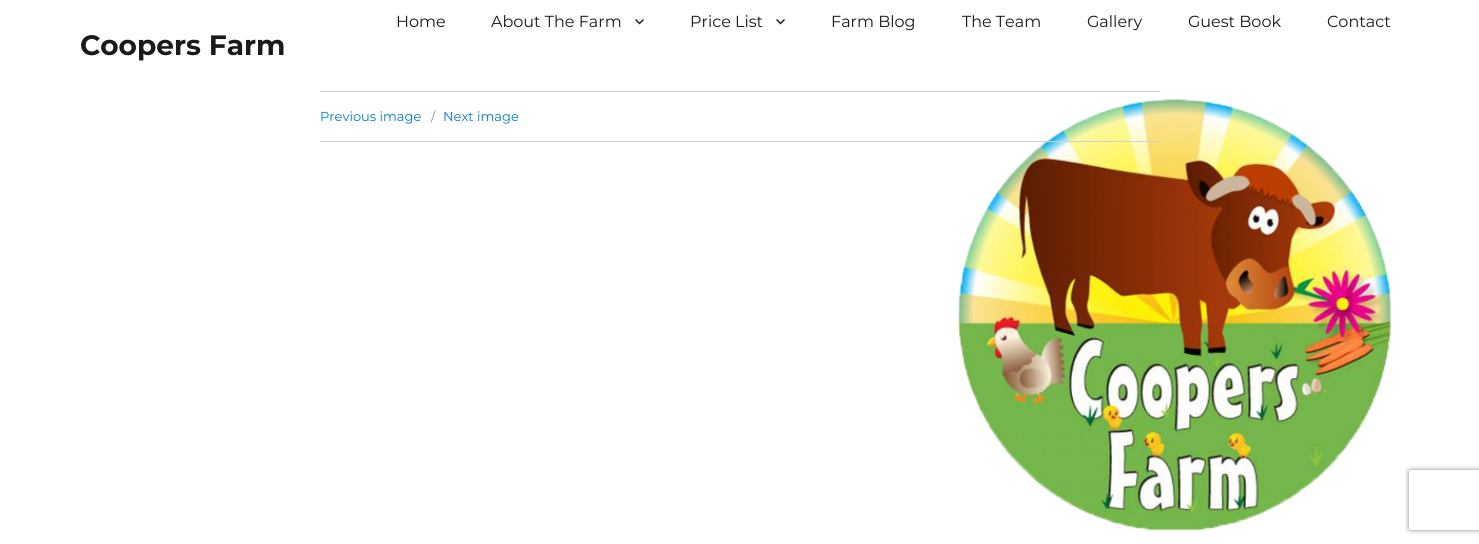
#include <cairo.h>
#include <math.h>
#include <stddef.h>

typedef struct { const char *family; double size; int italic, bold; unsigned color; } style_t;
static cairo_t *ctx;

static void ink(unsigned color) {
    cairo_set_source_rgb(ctx, (color >> 16) / 255.0, (color >> 8 & 255) / 255.0, (color & 255) / 255.0);
}

static void write(double x, double y, const char *s, const style_t *st) {
    cairo_select_font_face(ctx, st->family, st->italic ? CAIRO_FONT_SLANT_ITALIC : CAIRO_FONT_SLANT_NORMAL,
        st->bold ? CAIRO_FONT_WEIGHT_BOLD : CAIRO_FONT_WEIGHT_NORMAL);
    cairo_set_font_size(ctx, st->size);
    ink(st->color);
    cairo_move_to(ctx, x, y);
    cairo_show_text(ctx, s);
}

static void block(double x, double y, double w, double h, unsigned color) {
    ink(color);
    cairo_rectangle(ctx, x, y, w, h);
    cairo_fill(ctx);
}

static void round_path(double x, double y, double w, double h, double r) {
    cairo_new_sub_path(ctx);
    cairo_arc(ctx, x + w - r, y + h - r, r, 0, M_PI / 2);
    cairo_arc(ctx, x + r, y + h - r, r, M_PI / 2, M_PI);
    cairo_arc(ctx, x + r, y + r, r, M_PI, 1.5 * M_PI);
    cairo_arc(ctx, x + w - r, y + r, r, 1.5 * M_PI, 2 * M_PI);
    cairo_close_path(ctx);
}

static void blur_box(double x, double y, double w, double h, double r, double blur, double alpha) {
    cairo_push_group_with_content(ctx, CAIRO_CONTENT_ALPHA);
    cairo_set_operator(ctx, CAIRO_OPERATOR_SOURCE);
    for (int i = 15; i >= -15 && fmin(w, h) + blur * i / 3 > 0; i -= 2) {
        double e = blur * i / 6;
        cairo_set_source_rgba(ctx, 0, 0, 0, alpha * erfc((i - 1) / 8.5) / 2);
        round_path(x - e, y - e, w + 2 * e, h + 2 * e, fmax(0, fmin(r + e + blur * .6, fmin(w, h) / 2 + e)));
        cairo_fill(ctx);
    }
    cairo_pattern_t *soft = cairo_pop_group(ctx);
    cairo_mask(ctx, soft);
    cairo_pattern_destroy(soft);
}

static void paste(const char *path, double x, double y, double w, double h) {
    cairo_surface_t *image = cairo_image_surface_create_from_png(path);
    cairo_save(ctx);
    cairo_set_source_surface(ctx, image, x, y);
    cairo_rectangle(ctx, x, y, w, h);
    cairo_fill(ctx);
    cairo_restore(ctx);
    cairo_surface_destroy(image);
}

static const style_t s1 = {"Montserrat", 16, 0, 0, 0x1a1a1a};
static const style_t s2 = {"Montserrat", 28, 0, 1, 0x1a1a1a};
static const style_t s3 = {"Montserrat", 13, 0, 0, 0x007acc};
static const style_t s4 = {"Montserrat", 13, 0, 0, 0x959595};

int main(void) {
    cairo_surface_t *surface = cairo_image_surface_create(CAIRO_FORMAT_RGB24, 1479, 544);
    ctx = cairo_create(surface);
    cairo_font_options_t *options = cairo_font_options_create();
    cairo_font_options_set_hint_metrics(options, CAIRO_HINT_METRICS_OFF);
    cairo_font_options_set_hint_style(options, CAIRO_HINT_STYLE_NONE);
    cairo_set_font_options(ctx, options);
    cairo_set_miter_limit(ctx, 4);
    ink(0xffffff);
    cairo_paint(ctx);
    write(396, 27, "Home", &s1);
    write(491, 27, "About The Farm", &s1);
    paste("pic1.png", 635, 19, 9, 6);
    write(690, 27, "Price List", &s1);
    paste("pic1.png", 776, 19, 9, 6);
    write(831, 27, "Farm Blog", &s1);
    write(962, 27, "The Team", &s1);
    write(1087, 27, "Gallery", &s1);
    write(1188, 27, "Guest Book", &s1);
    write(1327, 27, "Contact", &s1);
    write(80, 55, "Coopers Farm", &s2);
    paste("pic2.png", 958, 98, 434, 433);
    block(320, 91, 840, 1, 0xd1d1d1);
    block(320, 141, 840, 1, 0xd1d1d1);
    write(320, 121, "Previous image", &s3);
    write(431, 121, "/", &s4);
    write(443, 121, "Next image", &s3);
    cairo_save(ctx);
    cairo_set_fill_rule(ctx, CAIRO_FILL_RULE_EVEN_ODD);
    cairo_new_path(ctx);
    cairo_move_to(ctx, 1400, 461);
    cairo_line_to(ctx, 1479, 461);
    cairo_line_to(ctx, 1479, 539);
    cairo_line_to(ctx, 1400, 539);
    cairo_close_path(ctx);
    cairo_move_to(ctx, 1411, 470);
    cairo_line_to(ctx, 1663, 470);
    cairo_curve_to(ctx, 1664, 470, 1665, 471, 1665, 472);
    cairo_line_to(ctx, 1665, 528);
    cairo_curve_to(ctx, 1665, 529, 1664, 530, 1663, 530);
    cairo_line_to(ctx, 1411, 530);
    cairo_curve_to(ctx, 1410, 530, 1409, 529, 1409, 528);
    cairo_line_to(ctx, 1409, 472);
    cairo_curve_to(ctx, 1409, 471, 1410, 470, 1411, 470);
    cairo_close_path(ctx);
    cairo_clip(ctx);
    ink(0x808080);
    blur_box(1409, 470, 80, 60, 2, 2.5, 1);
    cairo_restore(ctx);
    cairo_surface_write_to_png(surface, "screenshot.png");
    cairo_font_options_destroy(options);
    cairo_destroy(ctx);
    cairo_surface_destroy(surface);
    return 0;
}
